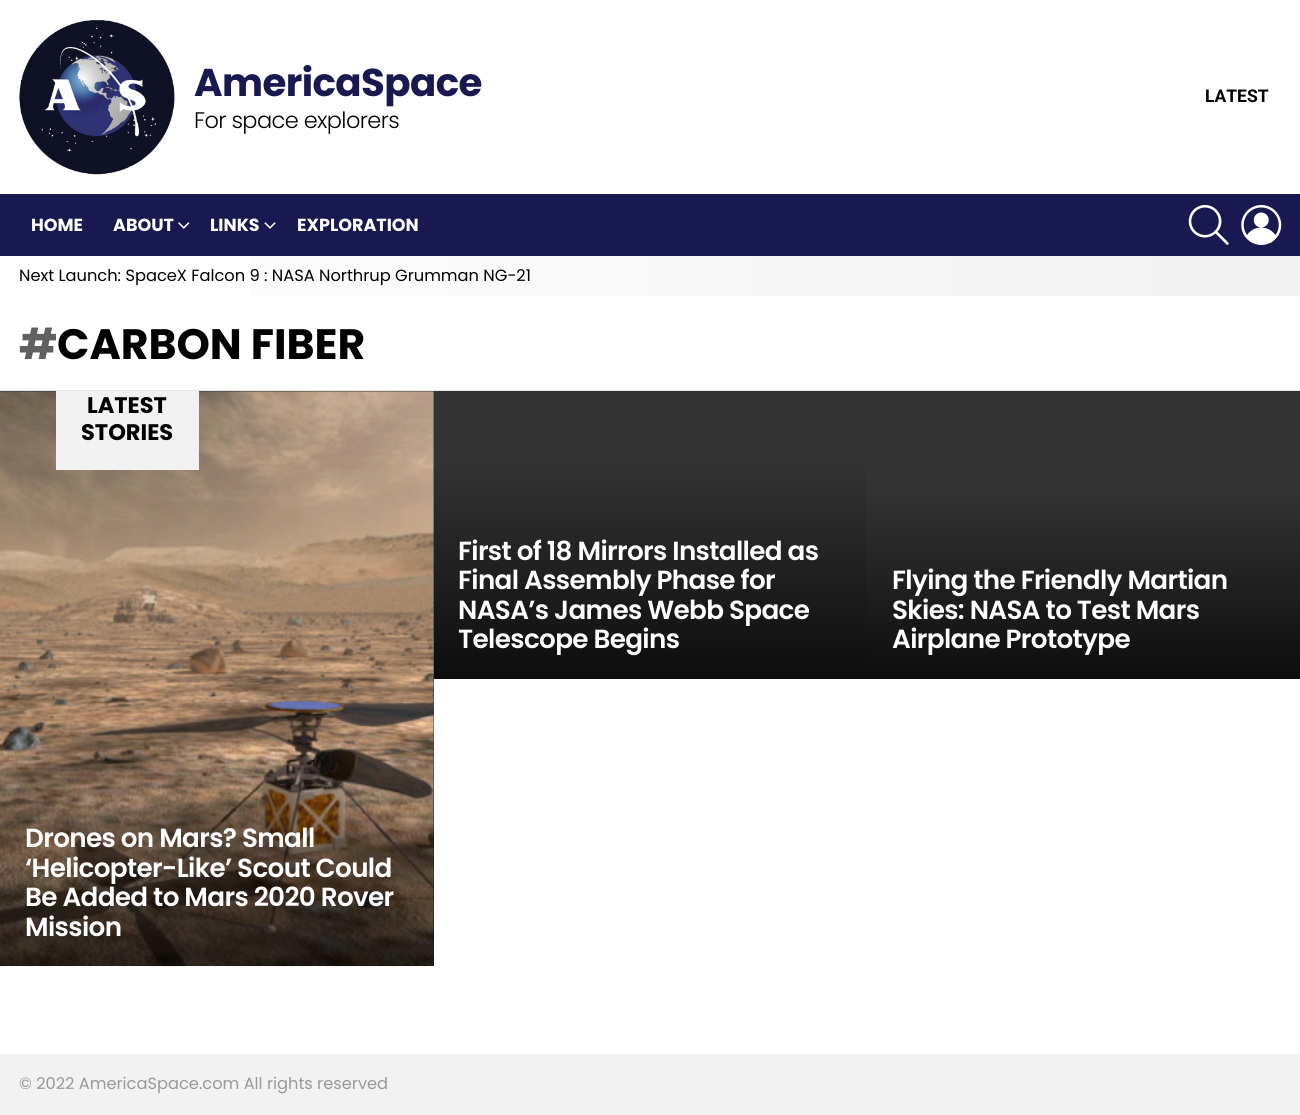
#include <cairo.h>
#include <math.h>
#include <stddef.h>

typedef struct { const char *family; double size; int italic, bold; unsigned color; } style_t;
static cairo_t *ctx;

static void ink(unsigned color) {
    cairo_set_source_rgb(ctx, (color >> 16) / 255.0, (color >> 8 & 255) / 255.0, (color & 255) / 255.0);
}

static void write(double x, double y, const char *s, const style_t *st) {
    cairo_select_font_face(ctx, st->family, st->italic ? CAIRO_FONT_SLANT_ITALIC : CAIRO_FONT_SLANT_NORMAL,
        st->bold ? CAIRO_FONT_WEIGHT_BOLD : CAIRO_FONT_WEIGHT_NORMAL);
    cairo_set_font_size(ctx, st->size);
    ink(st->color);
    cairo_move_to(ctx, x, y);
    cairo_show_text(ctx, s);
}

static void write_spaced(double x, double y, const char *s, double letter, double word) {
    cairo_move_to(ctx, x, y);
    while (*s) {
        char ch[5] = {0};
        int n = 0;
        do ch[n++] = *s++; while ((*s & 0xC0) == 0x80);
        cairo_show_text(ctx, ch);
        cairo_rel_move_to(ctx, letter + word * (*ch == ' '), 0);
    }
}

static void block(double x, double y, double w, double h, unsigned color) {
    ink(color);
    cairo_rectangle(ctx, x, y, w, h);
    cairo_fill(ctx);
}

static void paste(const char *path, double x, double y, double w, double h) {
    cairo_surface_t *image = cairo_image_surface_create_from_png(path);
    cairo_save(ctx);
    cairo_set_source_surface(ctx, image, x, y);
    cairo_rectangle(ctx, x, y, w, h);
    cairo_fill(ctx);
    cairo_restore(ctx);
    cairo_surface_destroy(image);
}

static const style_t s1 = {"Roboto", 17.5, 0, 1, 0x000000};
static const style_t s2 = {"Poppins", 17.5, 0, 1, 0xffffff};
static const style_t s3 = {"Poppins", 16.25, 0, 0, 0x000000};
static const style_t s4 = {"Poppins", 42.5, 0, 1, 0x606060};
static const style_t s5 = {"Poppins", 42.5, 0, 1, 0x000000};
static const style_t s6 = {"Poppins", 22.5, 0, 1, 0x000000};
static const style_t s7 = {"Poppins", 16.25, 0, 0, 0x999999};

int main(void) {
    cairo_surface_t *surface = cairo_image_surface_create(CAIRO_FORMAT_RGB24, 1300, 1115);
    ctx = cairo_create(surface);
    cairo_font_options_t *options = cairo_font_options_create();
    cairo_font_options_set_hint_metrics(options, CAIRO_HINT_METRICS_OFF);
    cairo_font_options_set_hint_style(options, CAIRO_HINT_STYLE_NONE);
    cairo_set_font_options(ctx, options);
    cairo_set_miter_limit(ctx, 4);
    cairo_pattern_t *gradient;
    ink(0xffffff);
    cairo_paint(ctx);
    paste("pic1.png", 19, 20, 156, 155);
    cairo_select_font_face(ctx, "Poppins", CAIRO_FONT_SLANT_NORMAL, CAIRO_FONT_WEIGHT_BOLD);
    cairo_set_font_size(ctx, 38.75);
    ink(0x171950);
    write_spaced(194, 96, "AmericaSpace", -0.6, 0);
    cairo_select_font_face(ctx, "Poppins Light", CAIRO_FONT_SLANT_NORMAL, CAIRO_FONT_WEIGHT_NORMAL);
    cairo_set_font_size(ctx, 22.5);
    ink(0x000000);
    write_spaced(194, 128, "For space explorers", -0.6, 0);
    write(1205, 102, "LATEST", &s1);
    block(0, 194, 1300, 62, 0x171950);
    write(31, 231, "HOME", &s2);
    write(113, 231, "ABOUT", &s2);
    paste("pic2.png", 178, 222, 12, 7);
    write(210, 231, "LINKS", &s2);
    paste("pic3.png", 264, 222, 12, 7);
    write(297, 231, "EXPLORATION", &s2);
    paste("pic4.png", 1188, 205, 41, 40);
    paste("pic5.png", 1241, 205, 41, 40);
    gradient = cairo_pattern_create_linear(0, 276, 1300, 276);
    cairo_pattern_add_color_stop_rgba(gradient, 0, 1, 1, 1, 1);
    cairo_pattern_add_color_stop_rgba(gradient, 1, 0.949, 0.949, 0.949, 1);
    cairo_set_source(ctx, gradient);
    cairo_pattern_destroy(gradient);
    cairo_rectangle(ctx, 250, 256, 1050, 40);
    cairo_fill(ctx);
    write(19, 281, "Next Launch: SpaceX Falcon 9 : NASA Northrup Grumman NG-21", &s3);
    write(19, 359, "#", &s4);
    write(57, 359, "CARBON FIBER", &s5);
    block(0, 390, 1300, 1, 0xe6e6e6);
    block(0, 391, 434, 575, 0x333333);
    paste("pic6.png", 0, 391, 434, 576);
    block(56, 391, 143, 79, 0xf2f2f2);
    write(87, 413, "LATEST", &s6);
    write(81, 440, "STORIES", &s6);
    block(434, 391, 432, 70, 0x333333);
    gradient = cairo_pattern_create_linear(650, 461, 650, 679);
    cairo_pattern_add_color_stop_rgba(gradient, 0, 0.2, 0.2, 0.2, 1);
    cairo_pattern_add_color_stop_rgba(gradient, 1, 0.051, 0.051, 0.051, 1);
    cairo_set_source(ctx, gradient);
    cairo_pattern_destroy(gradient);
    cairo_rectangle(ctx, 434, 461, 432, 218);
    cairo_fill(ctx);
    cairo_select_font_face(ctx, "Poppins SemiBold", CAIRO_FONT_SLANT_NORMAL, CAIRO_FONT_WEIGHT_NORMAL);
    cairo_set_font_size(ctx, 26.25);
    ink(0xffffff);
    write_spaced(458, 560, "First of 18 Mirrors Installed as", -0.65, 0);
    write_spaced(458, 589, "Final Assembly Phase for", -0.65, 0);
    write_spaced(458, 619, "NASA’s James Webb Space", -0.65, 0);
    write_spaced(458, 648, "Telescope Begins", -0.65, 0);
    block(866, 391, 434, 99, 0x333333);
    gradient = cairo_pattern_create_linear(1083, 490, 1083, 679);
    cairo_pattern_add_color_stop_rgba(gradient, 0, 0.2, 0.2, 0.2, 1);
    cairo_pattern_add_color_stop_rgba(gradient, 1, 0.051, 0.051, 0.051, 1);
    cairo_set_source(ctx, gradient);
    cairo_pattern_destroy(gradient);
    cairo_rectangle(ctx, 866, 490, 434, 189);
    cairo_fill(ctx);
    ink(0xffffff);
    write_spaced(892, 589, "Flying the Friendly Martian", -0.65, 0);
    write_spaced(892, 619, "Skies: NASA to Test Mars", -0.65, 0);
    write_spaced(892, 648, "Airplane Prototype", -0.65, 0);
    gradient = cairo_pattern_create_linear(217, 749, 217, 966);
    cairo_pattern_add_color_stop_rgba(gradient, 0, 0, 0, 0, 0);
    cairo_pattern_add_color_stop_rgba(gradient, 1, 0, 0, 0, 0.75);
    cairo_set_source(ctx, gradient);
    cairo_pattern_destroy(gradient);
    cairo_rectangle(ctx, 0, 755, 434, 211);
    cairo_fill(ctx);
    ink(0xffffff);
    write_spaced(25, 847, "Drones on Mars? Small", -0.65, 0);
    write_spaced(25, 877, "‘Helicopter-Like’ Scout Could", -0.65, 0);
    write_spaced(25, 906, "Be Added to Mars 2020 Rover", -0.65, 0);
    write_spaced(25, 936, "Mission", -0.65, 0);
    block(0, 1054, 1300, 61, 0xf2f2f2);
    write(19, 1089, "© 2022 AmericaSpace.com All rights reserved", &s7);
    cairo_surface_write_to_png(surface, "screenshot.png");
    cairo_font_options_destroy(options);
    cairo_destroy(ctx);
    cairo_surface_destroy(surface);
    return 0;
}
